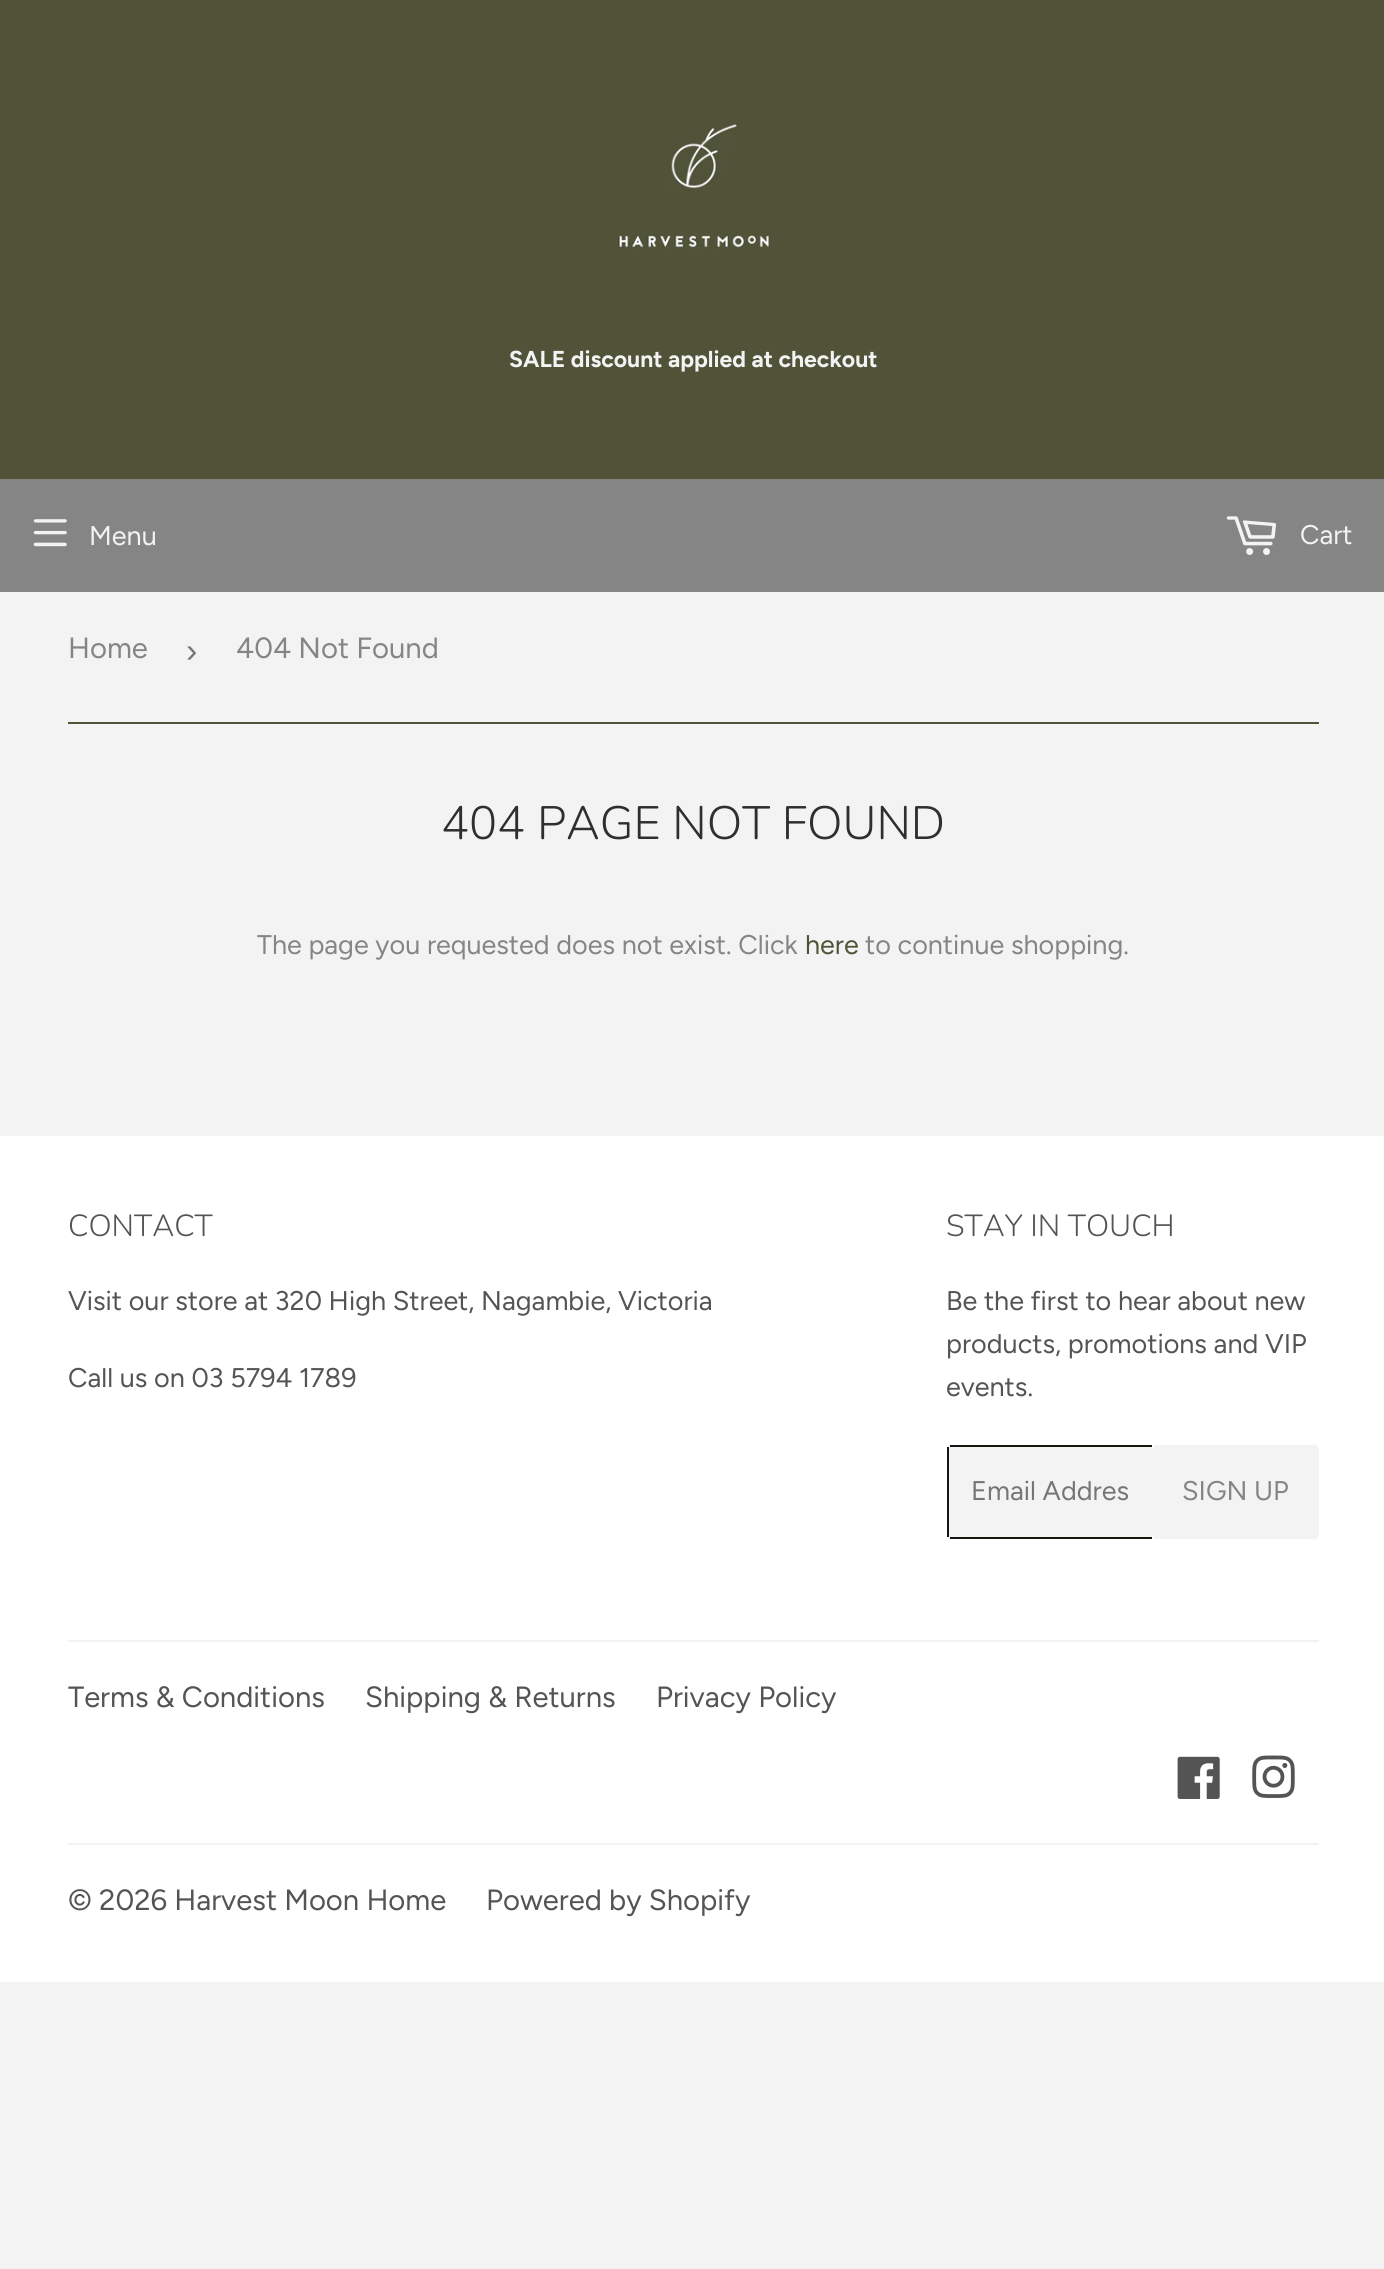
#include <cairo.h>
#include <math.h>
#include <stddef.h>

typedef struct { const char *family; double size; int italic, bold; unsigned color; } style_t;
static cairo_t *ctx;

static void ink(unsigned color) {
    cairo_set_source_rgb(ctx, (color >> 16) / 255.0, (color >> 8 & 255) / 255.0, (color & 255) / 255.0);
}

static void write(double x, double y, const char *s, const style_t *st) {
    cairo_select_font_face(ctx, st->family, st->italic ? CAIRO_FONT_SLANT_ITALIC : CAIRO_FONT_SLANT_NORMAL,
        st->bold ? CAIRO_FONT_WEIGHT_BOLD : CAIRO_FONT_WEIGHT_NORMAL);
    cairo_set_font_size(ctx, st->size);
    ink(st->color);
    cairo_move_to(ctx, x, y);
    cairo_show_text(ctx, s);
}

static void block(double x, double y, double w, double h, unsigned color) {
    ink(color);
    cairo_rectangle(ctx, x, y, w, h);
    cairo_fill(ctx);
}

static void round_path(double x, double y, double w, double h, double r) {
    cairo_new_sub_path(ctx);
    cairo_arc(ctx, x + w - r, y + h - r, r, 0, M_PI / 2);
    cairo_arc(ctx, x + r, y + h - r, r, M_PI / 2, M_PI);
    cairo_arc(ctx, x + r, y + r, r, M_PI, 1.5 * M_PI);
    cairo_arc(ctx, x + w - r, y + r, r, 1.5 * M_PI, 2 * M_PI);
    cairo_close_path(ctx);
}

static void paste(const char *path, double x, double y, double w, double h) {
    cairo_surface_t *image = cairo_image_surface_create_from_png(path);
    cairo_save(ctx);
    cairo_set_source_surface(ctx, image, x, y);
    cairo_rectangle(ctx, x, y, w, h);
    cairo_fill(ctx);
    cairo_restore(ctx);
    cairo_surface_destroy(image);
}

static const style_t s1 = {"Figtree", 23, 0, 1, 0xf3f3f3};
static const style_t s2 = {"Figtree", 27, 0, 0, 0xf3f3f3};
static const style_t s3 = {"Figtree", 29.25, 0, 0, 0x858585};
static const style_t s4 = {"Liberation Sans", 34, 0, 0, 0x767676};
static const style_t s5 = {"Nunito Light", 46.75, 0, 0, 0x2f2f2f};
static const style_t s6 = {"Figtree", 27, 0, 0, 0x858585};
static const style_t s7 = {"Figtree", 27, 0, 0, 0x515338};
static const style_t s8 = {"Nunito Light", 30.5, 0, 0, 0x545454};
static const style_t s9 = {"Figtree", 27, 0, 0, 0x545454};
static const style_t s10 = {"Figtree", 27, 0, 0, 0x767676};
static const style_t s11 = {"Figtree", 29.25, 0, 0, 0x545454};

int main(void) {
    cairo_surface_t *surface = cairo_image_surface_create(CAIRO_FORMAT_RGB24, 1384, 2269);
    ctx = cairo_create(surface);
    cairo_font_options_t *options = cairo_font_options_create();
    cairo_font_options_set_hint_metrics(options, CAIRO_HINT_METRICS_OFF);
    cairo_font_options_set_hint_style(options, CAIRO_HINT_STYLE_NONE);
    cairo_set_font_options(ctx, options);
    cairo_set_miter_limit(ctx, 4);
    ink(0xf3f3f3);
    cairo_paint(ctx);
    block(0, 0, 1384, 479, 0x515338);
    paste("pic1.png", 618, 123, 152, 127);
    write(509, 367, "SALE discount applied at checkout", &s1);
    block(0, 479, 1384, 113, 0x858585);
    paste("pic2.png", 33, 519, 34, 28);
    write(89, 545, "Menu", &s2);
    paste("pic3.png", 1226, 516, 50, 39);
    write(1300, 544, "Cart", &s2);
    block(68, 722, 1251, 2, 0x515338);
    write(68, 658, "Home", &s3);
    write(186, 662, "›", &s4);
    write(236, 658, "404 Not Found", &s3);
    write(441, 839, "404 PAGE NOT FOUND", &s5);
    write(257, 954, "The page you requested does not exist. Click", &s6);
    write(805, 954, "here", &s7);
    write(865, 954, "to continue shopping.", &s6);
    block(0, 1136, 1384, 846, 0xffffff);
    write(68, 1236, "CONTACT", &s8);
    write(68, 1310, "Visit our store at 320 High Street, Nagambie, Victoria", &s9);
    write(68, 1387, "Call us on 03 5794 1789", &s9);
    write(946, 1236, "STAY IN TOUCH", &s8);
    write(946, 1310, "Be the first to hear about new", &s9);
    write(946, 1353, "products, promotions and VIP", &s9);
    write(946, 1396, "events.", &s9);
    ink(0xf3f3f3);
    round_path(947, 1445, 207, 94, 5);
    cairo_fill(ctx);
    block(950, 1445, 202, 2, 0x16160f);
    block(950, 1537, 202, 2, 0x16160f);
    block(947, 1447, 2, 90, 0x16160f);
    write(971, 1500, "Email Addres", &s10);
    ink(0xf3f3f3);
    cairo_new_path(ctx);
    cairo_move_to(ctx, 1154, 1445);
    cairo_line_to(ctx, 1314, 1445);
    cairo_curve_to(ctx, 1317, 1445, 1319, 1447, 1319, 1450);
    cairo_line_to(ctx, 1319, 1534);
    cairo_curve_to(ctx, 1319, 1537, 1317, 1539, 1314, 1539);
    cairo_line_to(ctx, 1154, 1539);
    cairo_close_path(ctx);
    cairo_fill(ctx);
    write(1182, 1500, "SIGN UP", &s6);
    block(68, 1640, 1251, 2, 0xf2f2f2);
    write(68, 1707, "Terms & Conditions", &s11);
    write(365, 1707, "Shipping & Returns", &s11);
    write(656, 1707, "Privacy Policy", &s11);
    paste("pic4.png", 1177, 1756, 43, 43);
    paste("pic5.png", 1252, 1755, 43, 43);
    block(68, 1843, 1251, 2, 0xf2f2f2);
    write(68, 1910, "© 2026 Harvest Moon Home", &s11);
    write(486, 1910, "Powered by Shopify", &s11);
    cairo_surface_write_to_png(surface, "screenshot.png");
    cairo_font_options_destroy(options);
    cairo_destroy(ctx);
    cairo_surface_destroy(surface);
    return 0;
}
